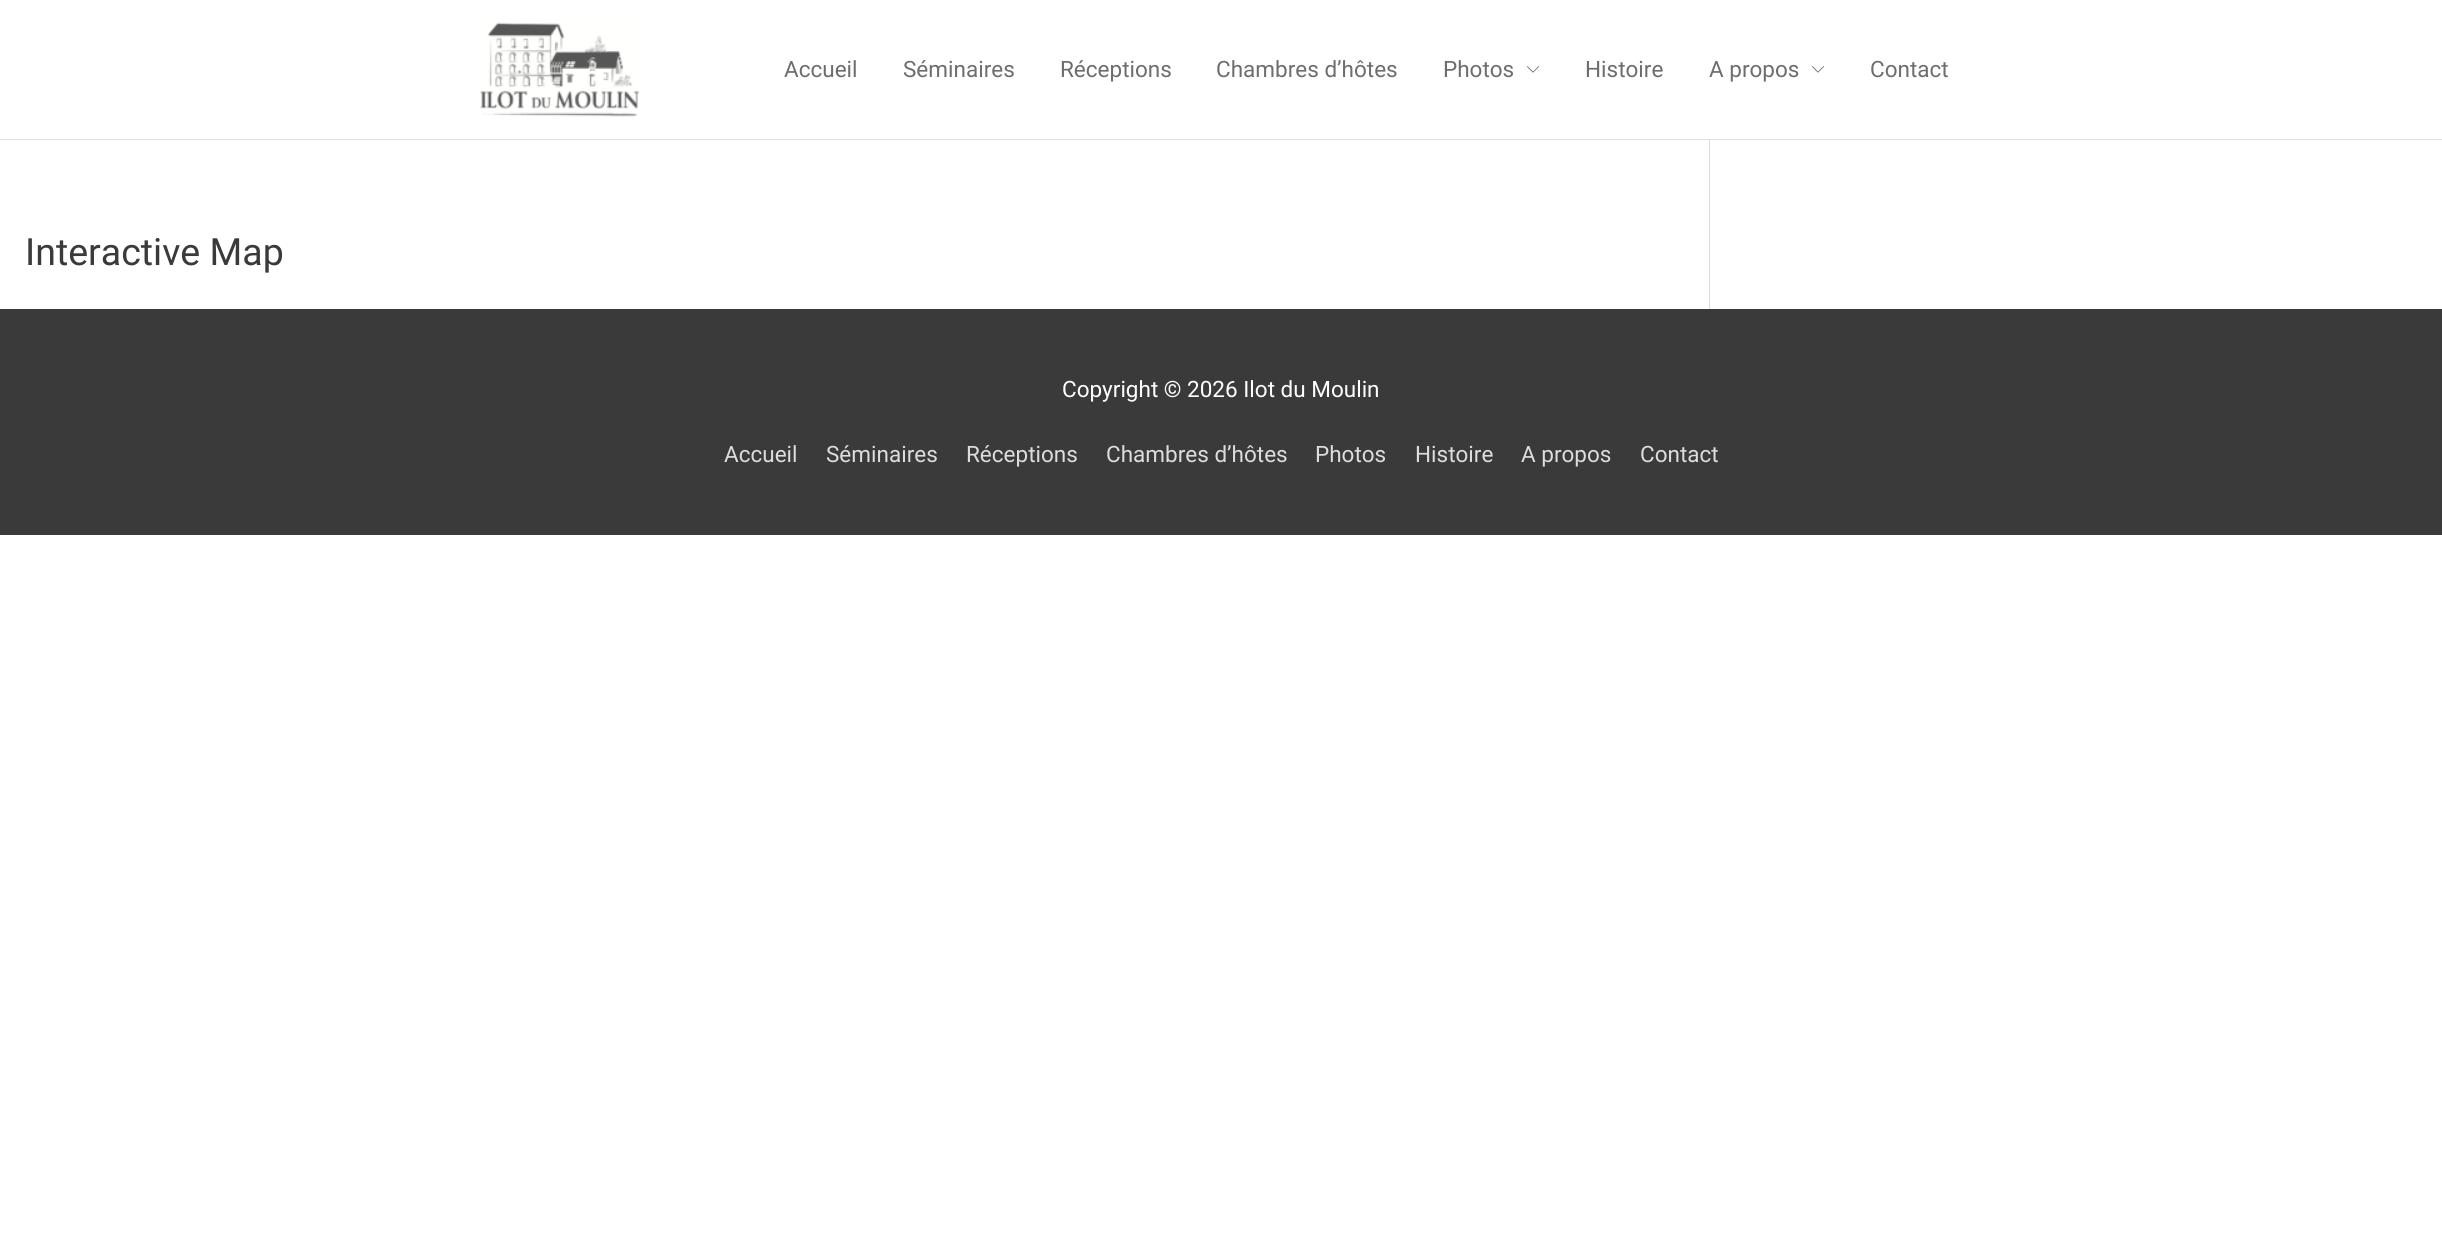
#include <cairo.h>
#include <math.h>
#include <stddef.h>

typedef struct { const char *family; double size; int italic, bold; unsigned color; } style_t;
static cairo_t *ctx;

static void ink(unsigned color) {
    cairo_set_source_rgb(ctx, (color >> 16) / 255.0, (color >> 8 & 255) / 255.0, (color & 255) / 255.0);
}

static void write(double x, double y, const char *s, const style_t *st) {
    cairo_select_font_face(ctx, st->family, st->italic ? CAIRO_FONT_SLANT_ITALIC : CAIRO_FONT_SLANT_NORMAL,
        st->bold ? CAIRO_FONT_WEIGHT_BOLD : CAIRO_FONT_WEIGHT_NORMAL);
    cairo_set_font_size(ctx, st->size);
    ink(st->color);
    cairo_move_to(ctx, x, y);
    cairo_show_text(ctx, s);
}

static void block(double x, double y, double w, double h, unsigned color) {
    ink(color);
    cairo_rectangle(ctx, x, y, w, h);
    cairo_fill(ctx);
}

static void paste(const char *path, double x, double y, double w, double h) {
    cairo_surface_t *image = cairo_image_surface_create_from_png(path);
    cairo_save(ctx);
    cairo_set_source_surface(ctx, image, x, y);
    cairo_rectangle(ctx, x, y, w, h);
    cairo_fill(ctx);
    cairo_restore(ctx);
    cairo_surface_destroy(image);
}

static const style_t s1 = {"Roboto", 22.5, 0, 0, 0x6d6d6d};
static const style_t s2 = {"Roboto", 37.5, 0, 0, 0x3a3a3a};
static const style_t s3 = {"Roboto", 22.5, 0, 0, 0xffffff};
static const style_t s4 = {"Roboto", 22.5, 0, 0, 0xdddddd};

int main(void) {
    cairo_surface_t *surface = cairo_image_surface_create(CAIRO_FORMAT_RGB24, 2442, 1250);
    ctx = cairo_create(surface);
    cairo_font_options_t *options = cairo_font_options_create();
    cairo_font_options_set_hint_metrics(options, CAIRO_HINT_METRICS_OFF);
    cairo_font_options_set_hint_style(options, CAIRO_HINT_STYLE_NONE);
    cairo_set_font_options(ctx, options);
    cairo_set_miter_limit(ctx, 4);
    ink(0xffffff);
    cairo_paint(ctx);
    block(0, 139, 2442, 1, 0xdddddd);
    paste("pic1.png", 480, 22, 159, 95);
    write(784, 77, "Accueil", &s1);
    write(903, 77, "Séminaires", &s1);
    write(1060, 77, "Réceptions", &s1);
    write(1216, 77, "Chambres d’hôtes", &s1);
    write(1443, 77, "Photos", &s1);
    paste("pic2.png", 1527, 66, 12, 7);
    write(1585, 77, "Histoire", &s1);
    write(1709, 77, "A propos", &s1);
    paste("pic2.png", 1812, 66, 12, 7);
    write(1870, 77, "Contact", &s1);
    block(1709, 140, 1, 169, 0xdddddd);
    write(25, 265, "Interactive Map", &s2);
    block(0, 309, 2442, 226, 0x3a3a3a);
    write(1062, 397, "Copyright © 2026 Ilot du Moulin", &s3);
    write(724, 462, "Accueil", &s4);
    write(826, 462, "Séminaires", &s4);
    write(966, 462, "Réceptions", &s4);
    write(1106, 462, "Chambres d’hôtes", &s4);
    write(1315, 462, "Photos", &s4);
    write(1415, 462, "Histoire", &s4);
    write(1521, 462, "A propos", &s4);
    write(1640, 462, "Contact", &s4);
    cairo_surface_write_to_png(surface, "screenshot.png");
    cairo_font_options_destroy(options);
    cairo_destroy(ctx);
    cairo_surface_destroy(surface);
    return 0;
}
